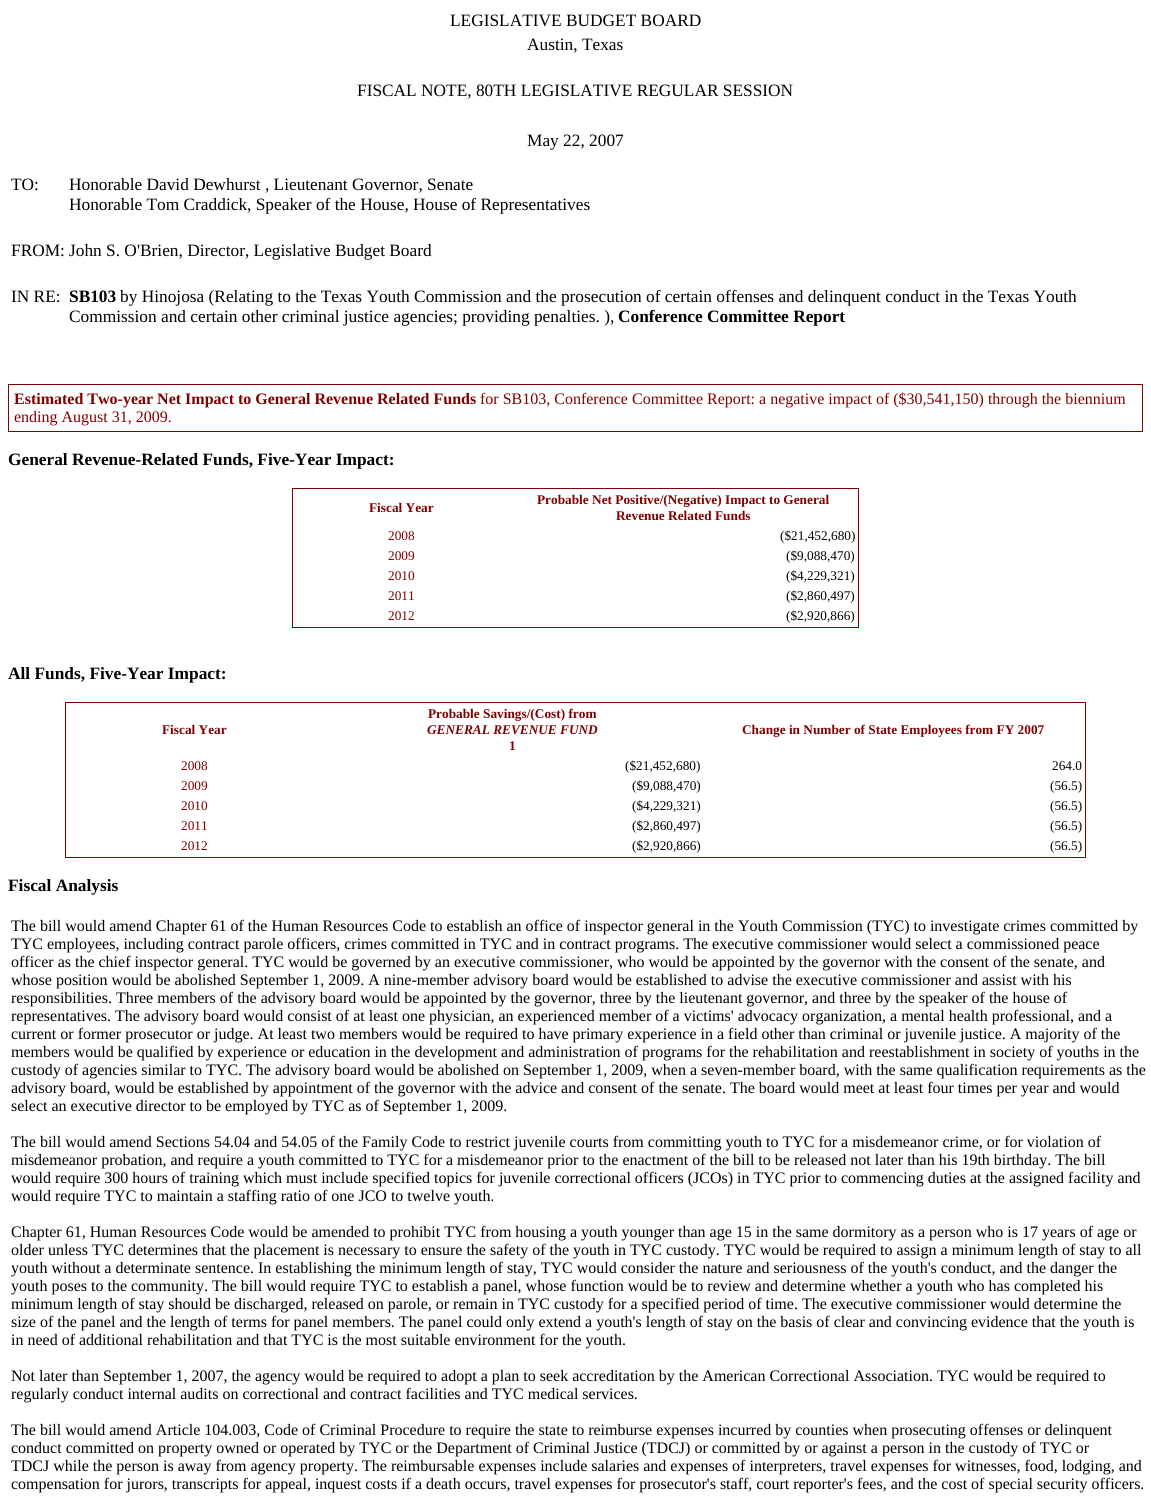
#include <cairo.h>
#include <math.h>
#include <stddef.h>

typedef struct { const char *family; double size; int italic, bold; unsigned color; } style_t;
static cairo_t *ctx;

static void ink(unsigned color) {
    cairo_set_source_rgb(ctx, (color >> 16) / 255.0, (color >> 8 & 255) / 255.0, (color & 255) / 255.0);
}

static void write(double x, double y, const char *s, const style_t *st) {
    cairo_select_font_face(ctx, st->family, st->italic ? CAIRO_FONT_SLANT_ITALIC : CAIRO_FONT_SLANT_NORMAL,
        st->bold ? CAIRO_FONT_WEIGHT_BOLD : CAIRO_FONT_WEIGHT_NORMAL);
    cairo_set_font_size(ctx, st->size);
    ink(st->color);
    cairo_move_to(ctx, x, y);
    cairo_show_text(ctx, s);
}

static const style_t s1 = {"Liberation Serif", 17.33, 0, 0, 0x000000};
static const style_t s2 = {"Liberation Serif", 17.33, 0, 1, 0x000000};
static const style_t s3 = {"Liberation Serif", 16, 0, 1, 0x800000};
static const style_t s4 = {"Liberation Serif", 16, 0, 0, 0x800000};
static const style_t s5 = {"Liberation Serif", 13.3, 0, 1, 0x800000};
static const style_t s6 = {"Liberation Serif", 13.3, 0, 0, 0x800000};
static const style_t s7 = {"Liberation Serif", 13.3, 0, 0, 0x000000};
static const style_t s8 = {"Liberation Serif", 13.3, 1, 1, 0x800000};
static const style_t s9 = {"Liberation Serif", 16, 0, 0, 0x000000};

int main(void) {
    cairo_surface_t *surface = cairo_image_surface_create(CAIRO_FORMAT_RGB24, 1151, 1499);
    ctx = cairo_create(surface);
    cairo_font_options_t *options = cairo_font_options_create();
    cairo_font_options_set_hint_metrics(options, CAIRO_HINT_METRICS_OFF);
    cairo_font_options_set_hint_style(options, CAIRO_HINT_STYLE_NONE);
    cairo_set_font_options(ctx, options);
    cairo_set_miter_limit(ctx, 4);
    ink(0xffffff);
    cairo_paint(ctx);
    write(450, 26, "LEGISLATIVE BUDGET BOARD", &s1);
    write(527, 50, "Austin, Texas", &s1);
    write(357, 96, "FISCAL NOTE, 80TH LEGISLATIVE REGULAR SESSION", &s1);
    write(527, 146, "May 22, 2007", &s1);
    write(11, 190, "TO:", &s1);
    write(69, 190, "Honorable David Dewhurst , Lieutenant Governor, Senate", &s1);
    write(69, 210, "Honorable Tom Craddick, Speaker of the House, House of Representatives", &s1);
    write(11, 256, "FROM:", &s1);
    write(69, 256, "John S. O'Brien, Director, Legislative Budget Board", &s1);
    write(11, 302, "IN RE:", &s1);
    write(69, 302, "SB103", &s2);
    write(120, 302, "by Hinojosa (Relating to the Texas Youth Commission and the prosecution of certain offenses and delinquent conduct in the Texas Youth", &s1);
    write(69, 322, "Commission and certain other criminal justice agencies; providing penalties. ),", &s1);
    write(618, 322, "Conference Committee Report", &s2);
    cairo_rectangle(ctx, 8.5, 384.5, 1134, 47);
    ink(0x800000);
    cairo_set_line_width(ctx, 1);
    cairo_stroke(ctx);
    write(14, 404, "Estimated Two-year Net Impact to General Revenue Related Funds", &s3);
    write(480, 404, "for SB103, Conference Committee Report: a negative impact of ($30,541,150) through the biennium", &s4);
    write(14, 422, "ending August 31, 2009.", &s4);
    write(8, 465, "General Revenue-Related Funds, Five-Year Impact:", &s2);
    cairo_rectangle(ctx, 292.5, 488.5, 566, 139);
    ink(0x800000);
    cairo_stroke(ctx);
    write(369, 512, "Fiscal Year", &s5);
    write(537, 504, "Probable Net Positive/(Negative) Impact to General", &s5);
    write(616, 520, "Revenue Related Funds", &s5);
    write(388, 540, "2008", &s6);
    write(780, 540, "($21,452,680)", &s7);
    write(388, 560, "2009", &s6);
    write(786, 560, "($9,088,470)", &s7);
    write(388, 580, "2010", &s6);
    write(786, 580, "($4,229,321)", &s7);
    write(388, 600, "2011", &s6);
    write(786, 600, "($2,860,497)", &s7);
    write(388, 620, "2012", &s6);
    write(786, 620, "($2,920,866)", &s7);
    write(8, 679, "All Funds, Five-Year Impact:", &s2);
    cairo_rectangle(ctx, 65.5, 702.5, 1020, 155);
    ink(0x800000);
    cairo_stroke(ctx);
    write(162, 734, "Fiscal Year", &s5);
    write(428, 718, "Probable Savings/(Cost) from", &s5);
    write(427, 734, "GENERAL REVENUE FUND", &s8);
    write(509, 750, "1", &s5);
    write(742, 734, "Change in Number of State Employees from FY 2007", &s5);
    write(181, 770, "2008", &s6);
    write(625, 770, "($21,452,680)", &s7);
    write(1052, 770, "264.0", &s7);
    write(181, 790, "2009", &s6);
    write(632, 790, "($9,088,470)", &s7);
    write(1050, 790, "(56.5)", &s7);
    write(181, 810, "2010", &s6);
    write(632, 810, "($4,229,321)", &s7);
    write(1050, 810, "(56.5)", &s7);
    write(181, 830, "2011", &s6);
    write(632, 830, "($2,860,497)", &s7);
    write(1050, 830, "(56.5)", &s7);
    write(181, 850, "2012", &s6);
    write(632, 850, "($2,920,866)", &s7);
    write(1050, 850, "(56.5)", &s7);
    write(8, 891, "Fiscal Analysis", &s2);
    write(11, 931, "The bill would amend Chapter 61 of the Human Resources Code to establish an office of inspector general in the Youth Commission (TYC) to investigate crimes committed by", &s9);
    write(11, 949, "TYC employees, including contract parole officers, crimes committed in TYC and in contract programs. The executive commissioner would select a commissioned peace", &s9);
    write(11, 967, "officer as the chief inspector general. TYC would be governed by an executive commissioner, who would be appointed by the governor with the consent of the senate, and", &s9);
    write(11, 985, "whose position would be abolished September 1, 2009. A nine-member advisory board would be established to advise the executive commissioner and assist with his", &s9);
    write(11, 1003, "responsibilities. Three members of the advisory board would be appointed by the governor, three by the lieutenant governor, and three by the speaker of the house of", &s9);
    write(11, 1021, "representatives. The advisory board would consist of at least one physician, an experienced member of a victims' advocacy organization, a mental health professional, and a", &s9);
    write(11, 1039, "current or former prosecutor or judge. At least two members would be required to have primary experience in a field other than criminal or juvenile justice. A majority of the", &s9);
    write(11, 1057, "members would be qualified by experience or education in the development and administration of programs for the rehabilitation and reestablishment in society of youths in the", &s9);
    write(11, 1075, "custody of agencies similar to TYC. The advisory board would be abolished on September 1, 2009, when a seven-member board, with the same qualification requirements as the", &s9);
    write(11, 1093, "advisory board, would be established by appointment of the governor with the advice and consent of the senate. The board would meet at least four times per year and would", &s9);
    write(11, 1111, "select an executive director to be employed by TYC as of September 1, 2009.", &s9);
    write(11, 1147, "The bill would amend Sections 54.04 and 54.05 of the Family Code to restrict juvenile courts from committing youth to TYC for a misdemeanor crime, or for violation of", &s9);
    write(11, 1165, "misdemeanor probation, and require a youth committed to TYC for a misdemeanor prior to the enactment of the bill to be released not later than his 19th birthday. The bill", &s9);
    write(11, 1183, "would require 300 hours of training which must include specified topics for juvenile correctional officers (JCOs) in TYC prior to commencing duties at the assigned facility and", &s9);
    write(11, 1201, "would require TYC to maintain a staffing ratio of one JCO to twelve youth.", &s9);
    write(11, 1237, "Chapter 61, Human Resources Code would be amended to prohibit TYC from housing a youth younger than age 15 in the same dormitory as a person who is 17 years of age or", &s9);
    write(11, 1255, "older unless TYC determines that the placement is necessary to ensure the safety of the youth in TYC custody. TYC would be required to assign a minimum length of stay to all", &s9);
    write(11, 1273, "youth without a determinate sentence. In establishing the minimum length of stay, TYC would consider the nature and seriousness of the youth's conduct, and the danger the", &s9);
    write(11, 1291, "youth poses to the community. The bill would require TYC to establish a panel, whose function would be to review and determine whether a youth who has completed his", &s9);
    write(11, 1309, "minimum length of stay should be discharged, released on parole, or remain in TYC custody for a specified period of time. The executive commissioner would determine the", &s9);
    write(11, 1327, "size of the panel and the length of terms for panel members. The panel could only extend a youth's length of stay on the basis of clear and convincing evidence that the youth is", &s9);
    write(11, 1345, "in need of additional rehabilitation and that TYC is the most suitable environment for the youth.", &s9);
    write(11, 1381, "Not later than September 1, 2007, the agency would be required to adopt a plan to seek accreditation by the American Correctional Association. TYC would be required to", &s9);
    write(11, 1399, "regularly conduct internal audits on correctional and contract facilities and TYC medical services.", &s9);
    write(11, 1435, "The bill would amend Article 104.003, Code of Criminal Procedure to require the state to reimburse expenses incurred by counties when prosecuting offenses or delinquent", &s9);
    write(11, 1453, "conduct committed on property owned or operated by TYC or the Department of Criminal Justice (TDCJ) or committed by or against a person in the custody of TYC or", &s9);
    write(11, 1471, "TDCJ while the person is away from agency property. The reimbursable expenses include salaries and expenses of interpreters, travel expenses for witnesses, food, lodging, and", &s9);
    write(11, 1489, "compensation for jurors, transcripts for appeal, inquest costs if a death occurs, travel expenses for prosecutor's staff, court reporter's fees, and the cost of special security officers.", &s9);
    cairo_surface_write_to_png(surface, "screenshot.png");
    cairo_font_options_destroy(options);
    cairo_destroy(ctx);
    cairo_surface_destroy(surface);
    return 0;
}
